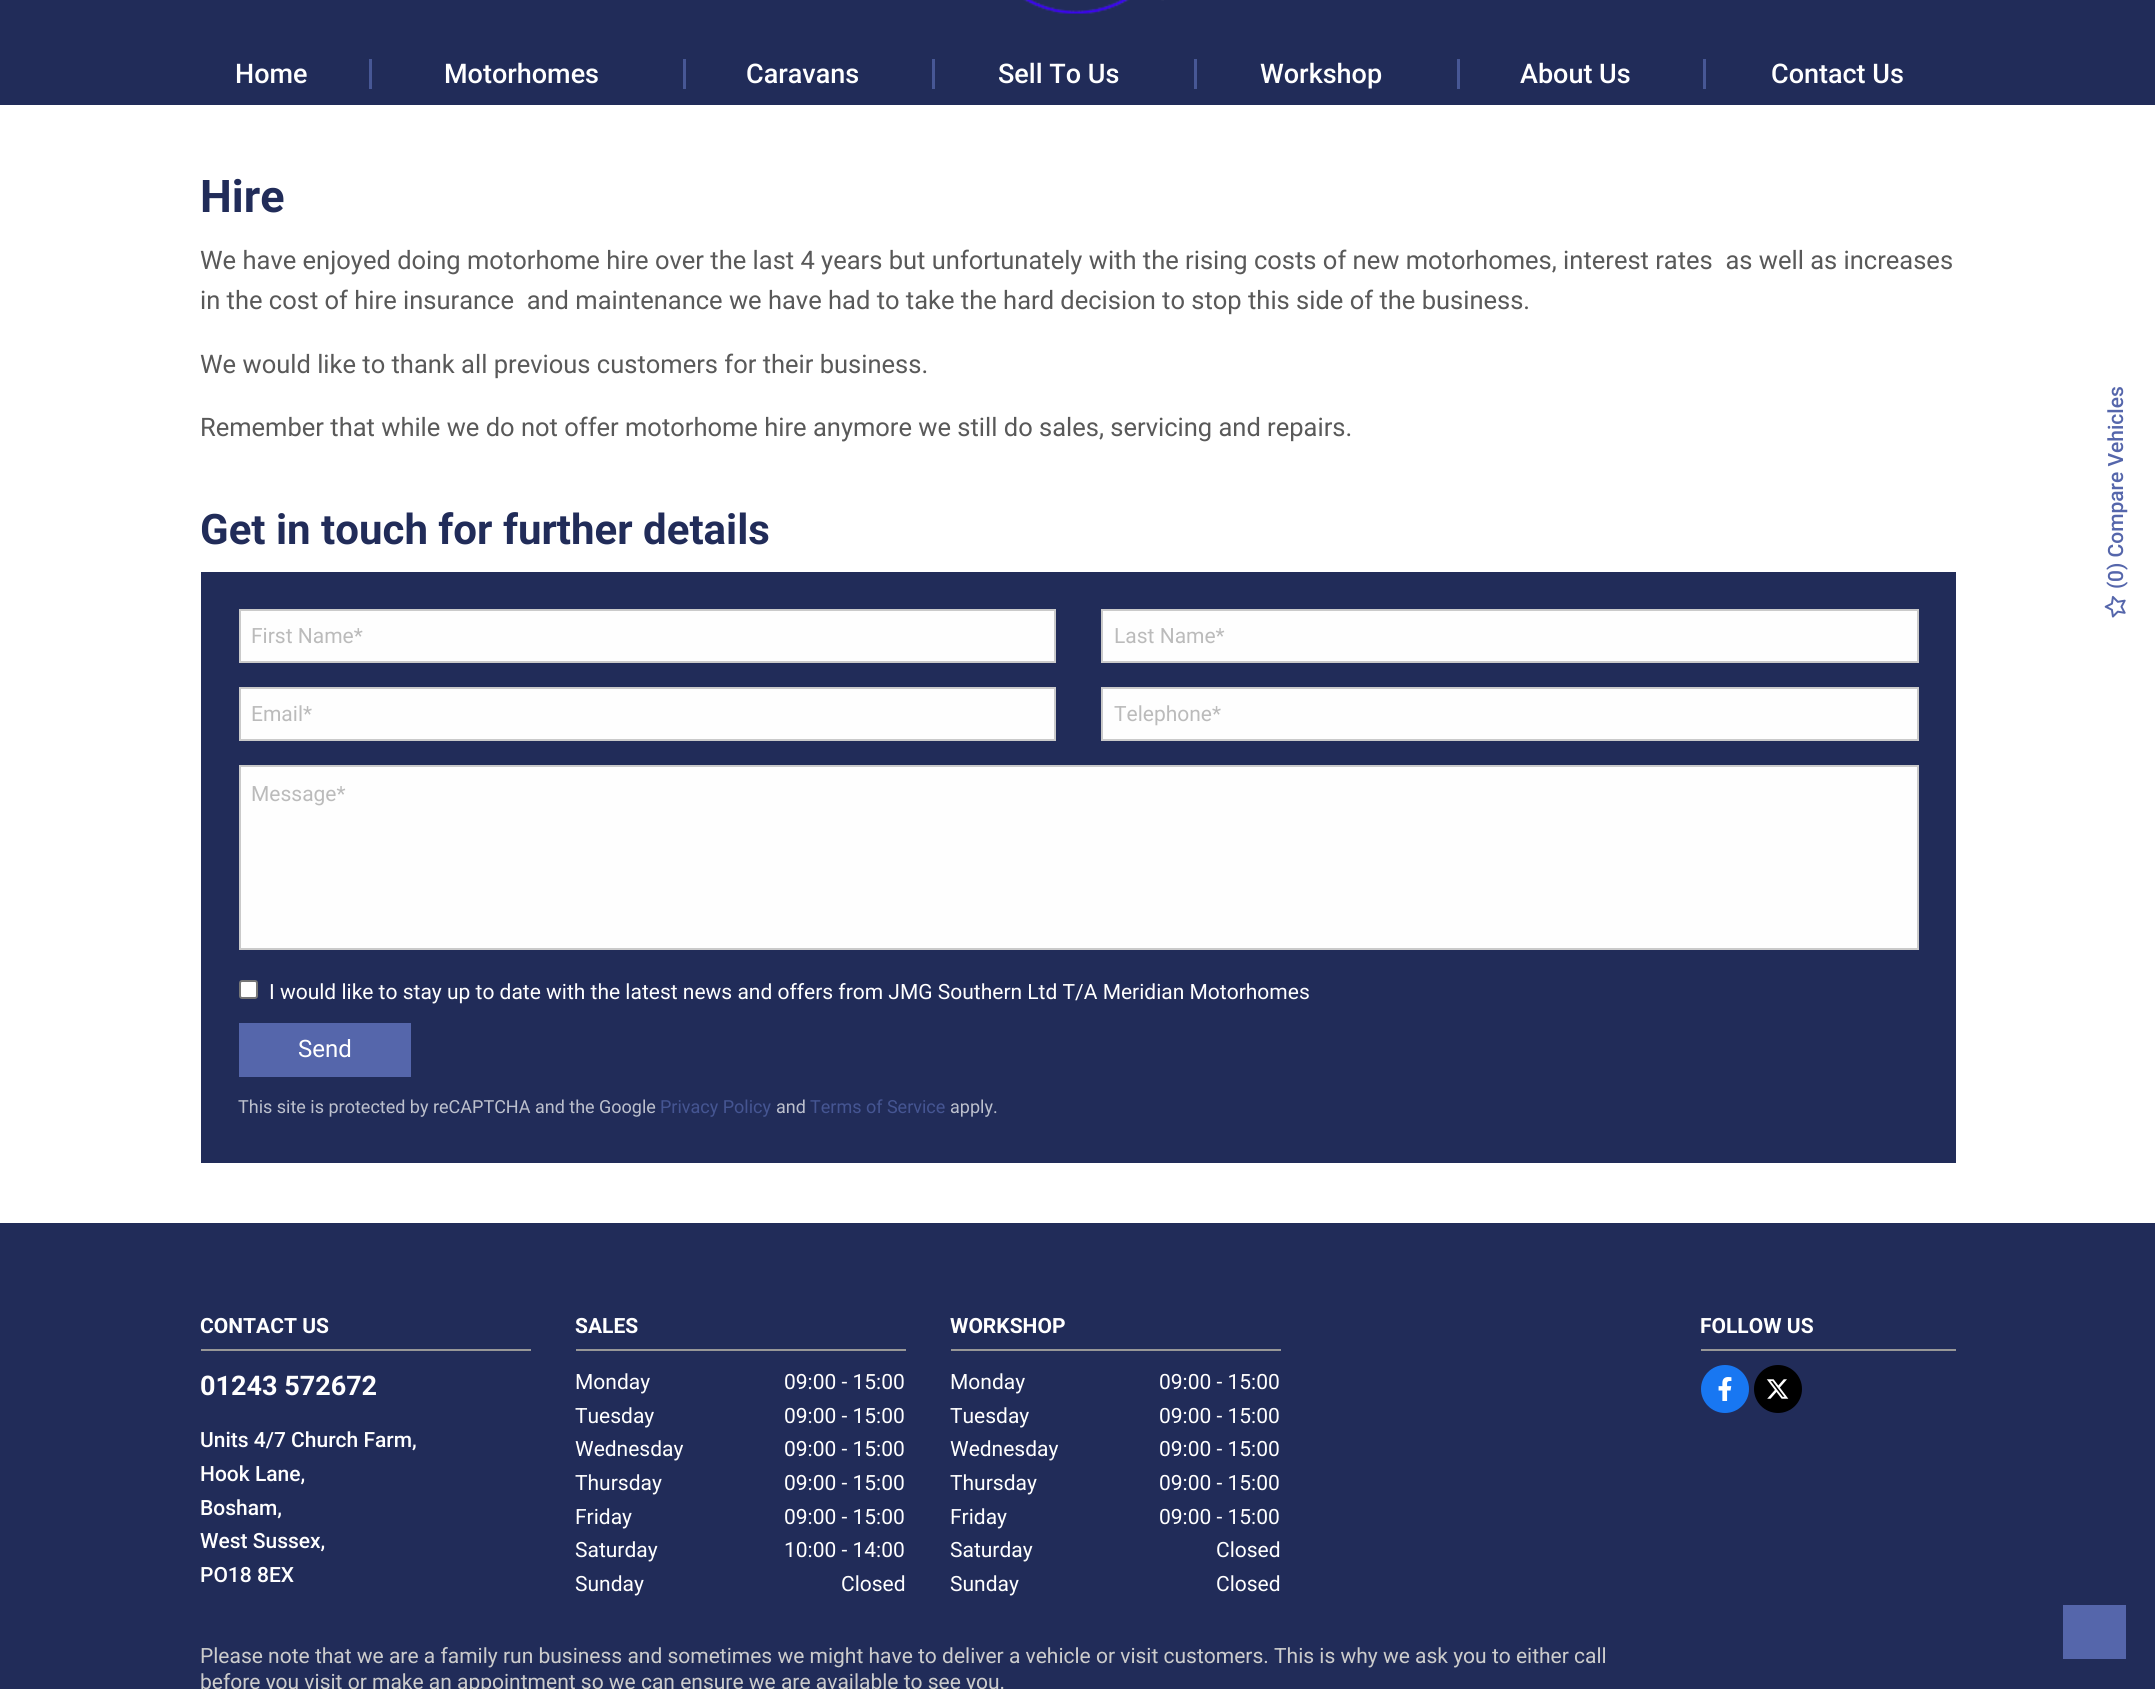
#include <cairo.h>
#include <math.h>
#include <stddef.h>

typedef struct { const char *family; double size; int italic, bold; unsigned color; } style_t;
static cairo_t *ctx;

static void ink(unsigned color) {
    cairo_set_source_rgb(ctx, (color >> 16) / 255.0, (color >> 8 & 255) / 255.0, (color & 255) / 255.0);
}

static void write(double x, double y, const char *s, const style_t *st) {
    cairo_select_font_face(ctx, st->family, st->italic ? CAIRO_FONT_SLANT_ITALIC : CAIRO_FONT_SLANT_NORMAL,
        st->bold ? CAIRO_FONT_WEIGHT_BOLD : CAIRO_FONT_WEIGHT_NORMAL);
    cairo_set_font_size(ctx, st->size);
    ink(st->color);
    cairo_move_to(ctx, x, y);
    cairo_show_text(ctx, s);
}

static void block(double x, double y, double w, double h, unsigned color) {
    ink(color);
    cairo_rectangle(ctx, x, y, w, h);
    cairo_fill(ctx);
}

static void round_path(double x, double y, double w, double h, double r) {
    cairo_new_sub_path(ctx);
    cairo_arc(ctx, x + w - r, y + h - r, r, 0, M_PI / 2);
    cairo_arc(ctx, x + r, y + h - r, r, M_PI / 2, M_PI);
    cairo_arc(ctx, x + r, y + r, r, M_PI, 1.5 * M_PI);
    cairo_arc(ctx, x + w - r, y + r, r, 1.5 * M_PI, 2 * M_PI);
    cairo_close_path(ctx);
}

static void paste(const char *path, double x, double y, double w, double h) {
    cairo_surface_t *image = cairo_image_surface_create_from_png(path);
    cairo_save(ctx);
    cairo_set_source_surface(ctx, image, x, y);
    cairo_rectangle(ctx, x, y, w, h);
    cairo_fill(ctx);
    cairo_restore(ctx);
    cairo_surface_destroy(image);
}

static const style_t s1 = {"Roboto Medium", 27, 0, 0, 0xffffff};
static const style_t s2 = {"Roboto", 45, 0, 1, 0x212c59};
static const style_t s3 = {"Roboto", 25.5, 0, 0, 0x595959};
static const style_t s4 = {"Roboto", 42, 0, 1, 0x212c59};
static const style_t s5 = {"Roboto", 21, 0, 0, 0xbbbbbb};
static const style_t s6 = {"Roboto", 21, 0, 0, 0xffffff};
static const style_t s7 = {"Roboto", 24, 0, 0, 0xffffff};
static const style_t s8 = {"Roboto", 18, 0, 0, 0xbcc0cd};
static const style_t s9 = {"Roboto", 18, 0, 0, 0x455592};
static const style_t s10 = {"Roboto Medium", 21, 0, 0, 0x5566ab};
static const style_t s11 = {"Roboto", 21, 0, 1, 0xffffff};
static const style_t s12 = {"Roboto", 27, 0, 1, 0xffffff};
static const style_t s13 = {"Roboto Medium", 21, 0, 0, 0xffffff};
static const style_t s14 = {"Roboto", 21, 0, 0, 0xcccccc};

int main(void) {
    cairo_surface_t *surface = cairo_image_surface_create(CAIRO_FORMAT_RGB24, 2155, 1689);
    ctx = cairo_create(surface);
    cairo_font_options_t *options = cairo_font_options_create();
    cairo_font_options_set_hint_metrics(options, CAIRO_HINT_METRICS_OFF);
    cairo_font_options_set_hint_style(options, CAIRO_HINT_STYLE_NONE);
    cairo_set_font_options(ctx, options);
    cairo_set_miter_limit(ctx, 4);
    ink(0xffffff);
    cairo_paint(ctx);
    block(0, 0, 2155, 105, 0x212c59);
    paste("pic1.png", 1023, 0, 141, 14);
    write(235, 83, "Home", &s1);
    block(369, 59, 3, 30, 0x475795);
    write(444, 83, "Motorhomes", &s1);
    block(683, 59, 3, 30, 0x475795);
    write(746, 83, "Caravans", &s1);
    block(932, 59, 3, 30, 0x475795);
    write(998, 83, "Sell To Us", &s1);
    block(1194, 59, 3, 30, 0x475795);
    write(1260, 83, "Workshop", &s1);
    block(1457, 59, 3, 30, 0x475795);
    write(1520, 83, "About Us", &s1);
    block(1703, 59, 3, 30, 0x475795);
    write(1771, 83, "Contact Us", &s1);
    write(200, 212, "Hire", &s2);
    write(200, 269, "We have enjoyed doing motorhome hire over the last 4 years but unfortunately with the rising costs of new motorhomes, interest rates  as well as increases", &s3);
    write(200, 309, "in the cost of hire insurance  and maintenance we have had to take the hard decision to stop this side of the business.", &s3);
    write(200, 373, "We would like to thank all previous customers for their business.", &s3);
    write(200, 436, "Remember that while we do not offer motorhome hire anymore we still do sales, servicing and repairs.", &s3);
    write(200, 544, "Get in touch for further details", &s4);
    block(201, 572, 1755, 591, 0x212c59);
    ink(0xfefefe);
    cairo_rectangle(ctx, 240, 610, 815, 52);
    cairo_fill_preserve(ctx);
    ink(0xcacaca);
    cairo_stroke(ctx);
    write(251, 643, "First Name*", &s5);
    ink(0xfefefe);
    cairo_rectangle(ctx, 1102, 610, 816, 52);
    cairo_fill_preserve(ctx);
    ink(0xcacaca);
    cairo_stroke(ctx);
    write(1114, 643, "Last Name*", &s5);
    ink(0xfefefe);
    cairo_rectangle(ctx, 240, 688, 815, 52);
    cairo_fill_preserve(ctx);
    ink(0xcacaca);
    cairo_stroke(ctx);
    write(251, 721, "Email*", &s5);
    ink(0xfefefe);
    cairo_rectangle(ctx, 1102, 688, 816, 52);
    cairo_fill_preserve(ctx);
    ink(0xcacaca);
    cairo_stroke(ctx);
    write(1114, 721, "Telephone*", &s5);
    ink(0xfefefe);
    cairo_rectangle(ctx, 240, 766, 1678, 183);
    cairo_fill_preserve(ctx);
    ink(0xcacaca);
    cairo_stroke(ctx);
    write(251, 801, "Message*", &s5);
    ink(0xffffff);
    round_path(240, 981, 17, 17, 2);
    cairo_fill_preserve(ctx);
    ink(0x767676);
    cairo_stroke(ctx);
    write(269, 999, "I would like to stay up to date with the latest news and offers from JMG Southern Ltd T/A Meridian Motorhomes", &s6);
    block(239, 1023, 172, 54, 0x5566ab);
    write(298, 1057, "Send", &s7);
    write(238, 1113, "This site is protected by reCAPTCHA and the Google", &s8);
    write(660, 1113, "Privacy Policy", &s9);
    write(776, 1113, "and", &s8);
    write(810, 1113, "Terms of Service", &s9);
    write(950, 1113, "apply.", &s8);
    cairo_save(ctx);
    cairo_translate(ctx, 2123, 570);
    cairo_rotate(ctx, -90 * M_PI / 180);
    write(0, 0, ") Compare Vehicles", &s10);
    cairo_restore(ctx);
    cairo_save(ctx);
    cairo_translate(ctx, 2123, 582);
    cairo_rotate(ctx, -90 * M_PI / 180);
    write(0, 0, "0", &s10);
    cairo_restore(ctx);
    cairo_save(ctx);
    cairo_translate(ctx, 2123, 589);
    cairo_rotate(ctx, -90 * M_PI / 180);
    write(0, 0, "(", &s10);
    cairo_restore(ctx);
    paste("pic2.png", 2104, 595, 22, 23);
    block(0, 1223, 2155, 466, 0x212c59);
    block(201, 1349, 330, 2, 0x979797);
    write(200, 1333, "CONTACT US", &s11);
    write(200, 1395, "01243 572672", &s12);
    write(200, 1447, "Units 4/7 Church Farm,", &s13);
    write(200, 1481, "Hook Lane,", &s13);
    write(200, 1515, "Bosham,", &s13);
    write(200, 1548, "West Sussex,", &s13);
    write(200, 1582, "PO18 8EX", &s13);
    block(576, 1349, 330, 2, 0x979797);
    write(575, 1333, "SALES", &s11);
    write(575, 1389, "Monday", &s6);
    write(784, 1389, "09:00 - 15:00", &s6);
    write(575, 1423, "Tuesday", &s6);
    write(784, 1423, "09:00 - 15:00", &s6);
    write(575, 1456, "Wednesday", &s6);
    write(784, 1456, "09:00 - 15:00", &s6);
    write(575, 1490, "Thursday", &s6);
    write(784, 1490, "09:00 - 15:00", &s6);
    write(575, 1524, "Friday", &s6);
    write(784, 1524, "09:00 - 15:00", &s6);
    write(575, 1557, "Saturday", &s6);
    write(784, 1557, "10:00 - 14:00", &s6);
    write(575, 1591, "Sunday", &s6);
    write(841, 1591, "Closed", &s6);
    block(951, 1349, 330, 2, 0x979797);
    write(950, 1333, "WORKSHOP", &s11);
    write(950, 1389, "Monday", &s6);
    write(1159, 1389, "09:00 - 15:00", &s6);
    write(950, 1423, "Tuesday", &s6);
    write(1159, 1423, "09:00 - 15:00", &s6);
    write(950, 1456, "Wednesday", &s6);
    write(1159, 1456, "09:00 - 15:00", &s6);
    write(950, 1490, "Thursday", &s6);
    write(1159, 1490, "09:00 - 15:00", &s6);
    write(950, 1524, "Friday", &s6);
    write(1159, 1524, "09:00 - 15:00", &s6);
    write(950, 1557, "Saturday", &s6);
    write(1216, 1557, "Closed", &s6);
    write(950, 1591, "Sunday", &s6);
    write(1216, 1591, "Closed", &s6);
    write(200, 1663, "Please note that we are a family run business and sometimes we might have to deliver a vehicle or visit customers. This is why we ask you to either call", &s14);
    write(200, 1689, "before you visit or make an appointment so we can ensure we are available to see you.", &s14);
    block(1701, 1349, 255, 2, 0x979797);
    write(1700, 1333, "FOLLOW US", &s11);
    ink(0x1877f2);
    cairo_new_path(ctx);
    cairo_arc(ctx, 1725, 1389, 24, 0, 2 * M_PI);
    cairo_fill(ctx);
    paste("pic3.png", 1718, 1377, 14, 24);
    ink(0x000000);
    cairo_arc(ctx, 1778, 1389, 24, 0, 2 * M_PI);
    cairo_fill(ctx);
    paste("pic4.png", 1766, 1379, 23, 20);
    block(2063, 1605, 63, 54, 0x5566ab);
    cairo_surface_write_to_png(surface, "screenshot.png");
    cairo_font_options_destroy(options);
    cairo_destroy(ctx);
    cairo_surface_destroy(surface);
    return 0;
}
